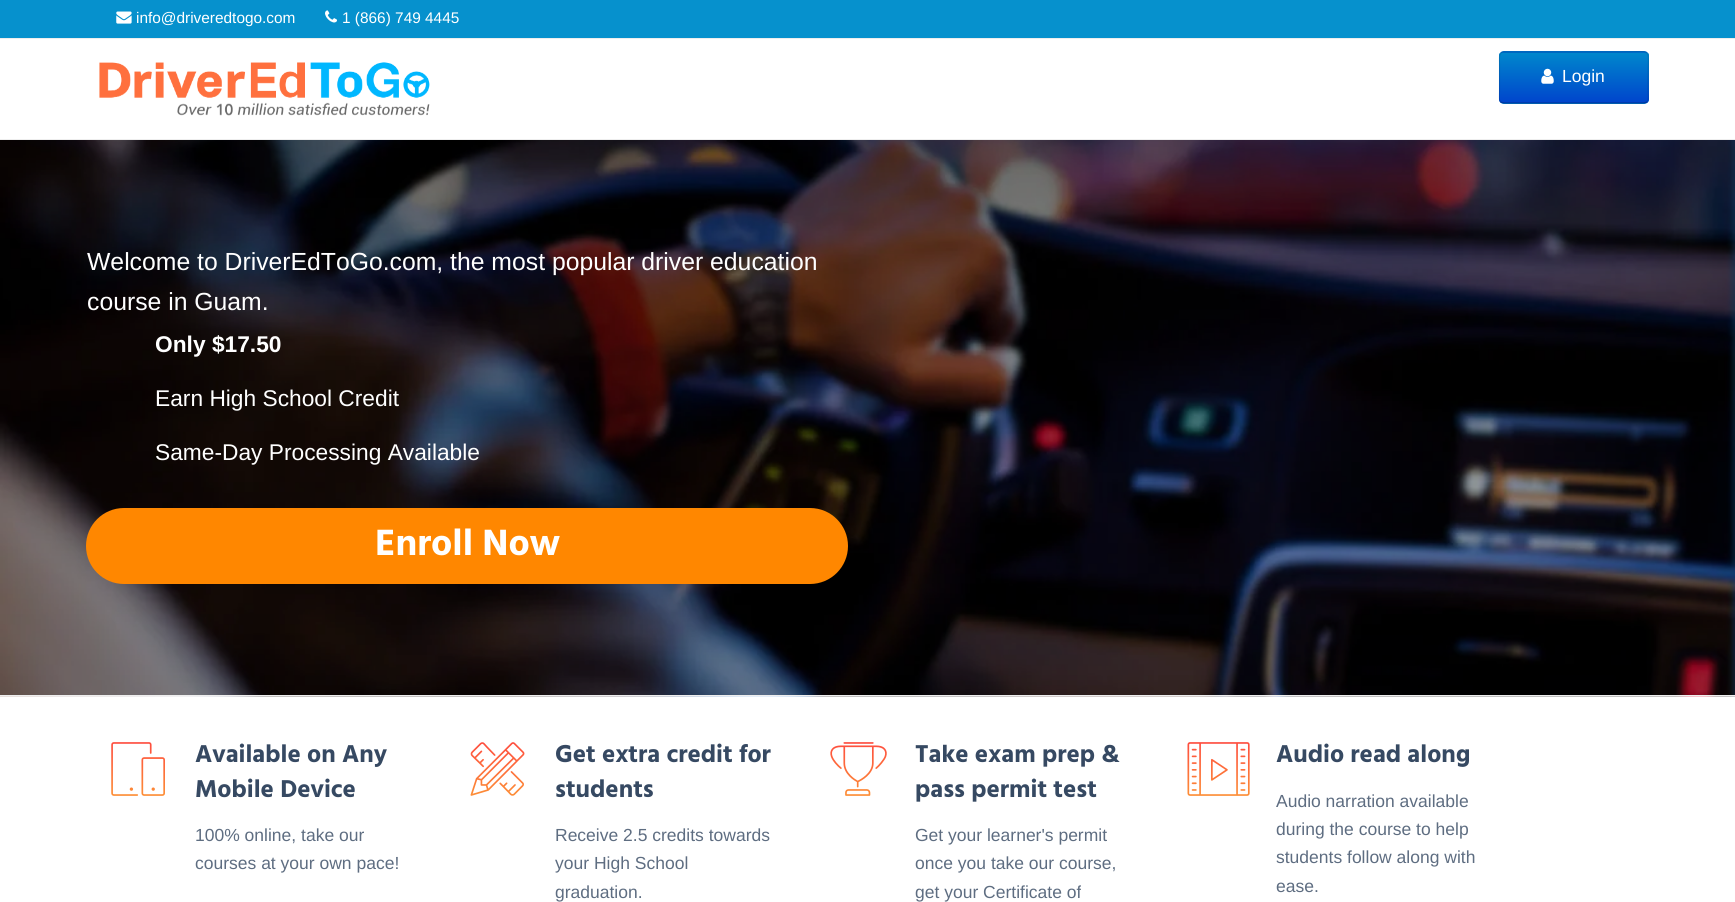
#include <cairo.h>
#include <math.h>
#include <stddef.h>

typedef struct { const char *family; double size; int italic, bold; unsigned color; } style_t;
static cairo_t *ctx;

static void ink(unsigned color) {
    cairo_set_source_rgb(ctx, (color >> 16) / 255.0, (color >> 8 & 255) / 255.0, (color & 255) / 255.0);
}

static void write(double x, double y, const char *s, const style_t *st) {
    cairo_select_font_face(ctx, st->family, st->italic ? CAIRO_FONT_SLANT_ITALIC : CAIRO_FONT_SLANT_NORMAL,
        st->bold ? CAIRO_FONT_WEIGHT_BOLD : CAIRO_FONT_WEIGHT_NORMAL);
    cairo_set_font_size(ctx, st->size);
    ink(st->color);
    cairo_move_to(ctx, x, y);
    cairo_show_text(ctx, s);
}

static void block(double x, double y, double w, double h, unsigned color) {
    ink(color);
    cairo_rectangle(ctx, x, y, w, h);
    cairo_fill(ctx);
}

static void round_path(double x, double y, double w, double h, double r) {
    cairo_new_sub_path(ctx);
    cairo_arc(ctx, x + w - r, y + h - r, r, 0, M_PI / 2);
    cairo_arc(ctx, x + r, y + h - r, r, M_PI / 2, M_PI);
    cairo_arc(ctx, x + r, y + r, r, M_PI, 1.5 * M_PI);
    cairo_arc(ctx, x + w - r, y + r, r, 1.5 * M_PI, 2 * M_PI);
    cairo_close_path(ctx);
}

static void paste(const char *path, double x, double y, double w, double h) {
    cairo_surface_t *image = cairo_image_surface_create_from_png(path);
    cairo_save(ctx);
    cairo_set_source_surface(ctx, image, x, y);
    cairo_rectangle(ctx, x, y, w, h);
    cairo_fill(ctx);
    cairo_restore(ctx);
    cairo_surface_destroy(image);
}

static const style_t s1 = {"Liberation Sans", 15.4, 0, 0, 0xffffff};
static const style_t s2 = {"Liberation Sans", 17.5, 0, 0, 0xffffff};
static const style_t s3 = {"Liberation Sans", 24.75, 0, 0, 0xffffff};
static const style_t s4 = {"Liberation Sans", 22.75, 0, 1, 0xffffff};
static const style_t s5 = {"Liberation Sans", 22.75, 0, 0, 0xffffff};
static const style_t s6 = {"Hind", 37.5, 0, 1, 0xffffff};
static const style_t s7 = {"Hind", 25, 0, 1, 0x364962};
static const style_t s8 = {"Liberation Sans", 17.5, 0, 0, 0x5e6d81};

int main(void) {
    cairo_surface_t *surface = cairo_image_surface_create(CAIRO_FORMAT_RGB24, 1735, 902);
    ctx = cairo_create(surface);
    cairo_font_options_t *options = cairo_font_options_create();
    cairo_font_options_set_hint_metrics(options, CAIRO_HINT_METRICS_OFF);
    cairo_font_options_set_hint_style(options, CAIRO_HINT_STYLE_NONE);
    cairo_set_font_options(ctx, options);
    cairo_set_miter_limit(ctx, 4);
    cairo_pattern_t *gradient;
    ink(0xffffff);
    cairo_paint(ctx);
    block(0, 139, 1735, 1, 0xeeeeee);
    block(0, 0, 1735, 38, 0x0691cd);
    block(0, 38, 1735, 1, 0xeeeeee);
    paste("pic1.png", 116, 11, 16, 13);
    write(136, 23, "info@driveredtogo.com", &s1);
    paste("pic2.png", 325, 10, 12, 13);
    write(342, 23, "1 (866) 749 4445", &s1);
    paste("pic3.png", 99, 62, 331, 54);
    ink(0x006dcc);
    round_path(1499, 51, 150, 53, 5);
    cairo_fill(ctx);
    cairo_save(ctx);
    round_path(1499, 51, 150, 53, 5);
    cairo_clip(ctx);
    gradient = cairo_pattern_create_linear(1574, 52, 1574, 103);
    cairo_pattern_add_color_stop_rgba(gradient, 0, 0, 0.533, 0.8, 1);
    cairo_pattern_add_color_stop_rgba(gradient, 1, 0, 0.267, 0.8, 1);
    cairo_set_source(ctx, gradient);
    cairo_pattern_destroy(gradient);
    cairo_rectangle(ctx, 1499, 53, 150, 50);
    cairo_fill(ctx);
    cairo_restore(ctx);
    cairo_new_path(ctx);
    cairo_move_to(ctx, 1647, 102);
    cairo_line_to(ctx, 1644, 103);
    cairo_line_to(ctx, 1527, 103);
    cairo_line_to(ctx, 1504, 103);
    cairo_line_to(ctx, 1500.5, 102);
    cairo_set_source_rgba(ctx, 0, 0, 0, 0.25);
    cairo_set_line_width(ctx, 1.2);
    cairo_stroke(ctx);
    cairo_new_path(ctx);
    cairo_move_to(ctx, 1500.5, 102);
    cairo_curve_to(ctx, 1498.5, 99.5, 1499.5, 94, 1499.5, 91.5);
    cairo_line_to(ctx, 1499.5, 63.5);
    cairo_curve_to(ctx, 1499.5, 60, 1498, 52, 1504, 52);
    cairo_line_to(ctx, 1620.5, 52);
    cairo_curve_to(ctx, 1653.5, 52, 1648, 46, 1648, 77.5);
    cairo_line_to(ctx, 1648, 91.5);
    cairo_curve_to(ctx, 1648, 94, 1649, 99.5, 1647, 102);
    cairo_set_source_rgba(ctx, 0, 0, 0, 0.1);
    cairo_stroke(ctx);
    paste("pic4.png", 1541, 68, 13, 16);
    write(1562, 82, "Login", &s2);
    paste("pic5.png", 0, 140, 1735, 557);
    block(0, 695, 1735, 1, 0xeeeeee);
    write(87, 270, "Welcome to DriverEdToGo.com, the most popular driver education", &s3);
    write(87, 310, "course in Guam.", &s3);
    write(155, 352, "Only $17.50", &s4);
    write(155, 406, "Earn High School Credit", &s5);
    write(155, 460, "Same-Day Processing Available", &s5);
    ink(0xff8700);
    round_path(86, 508, 762, 76, 38);
    cairo_fill(ctx);
    write(375, 555, "Enroll Now", &s6);
    paste("pic6.png", 111, 742, 54, 54);
    write(195, 762, "Available on Any", &s7);
    write(195, 797, "Mobile Device", &s7);
    write(195, 841, "100% online, take our", &s8);
    write(195, 869, "courses at your own pace!", &s8);
    paste("pic7.png", 470, 742, 55, 54);
    write(555, 762, "Get extra credit for", &s7);
    write(555, 797, "students", &s7);
    write(555, 841, "Receive 2.5 credits towards", &s8);
    write(555, 869, "your High School", &s8);
    write(555, 898, "graduation.", &s8);
    paste("pic8.png", 830, 742, 57, 54);
    write(915, 762, "Take exam prep &", &s7);
    write(915, 797, "pass permit test", &s7);
    write(915, 841, "Get your learner's permit", &s8);
    write(915, 869, "once you take our course,", &s8);
    write(915, 898, "get your Certificate of", &s8);
    paste("pic9.png", 1187, 742, 63, 54);
    write(1276, 762, "Audio read along", &s7);
    write(1276, 807, "Audio narration available", &s8);
    write(1276, 835, "during the course to help", &s8);
    write(1276, 863, "students follow along with", &s8);
    write(1276, 892, "ease.", &s8);
    cairo_surface_write_to_png(surface, "screenshot.png");
    cairo_font_options_destroy(options);
    cairo_destroy(ctx);
    cairo_surface_destroy(surface);
    return 0;
}
